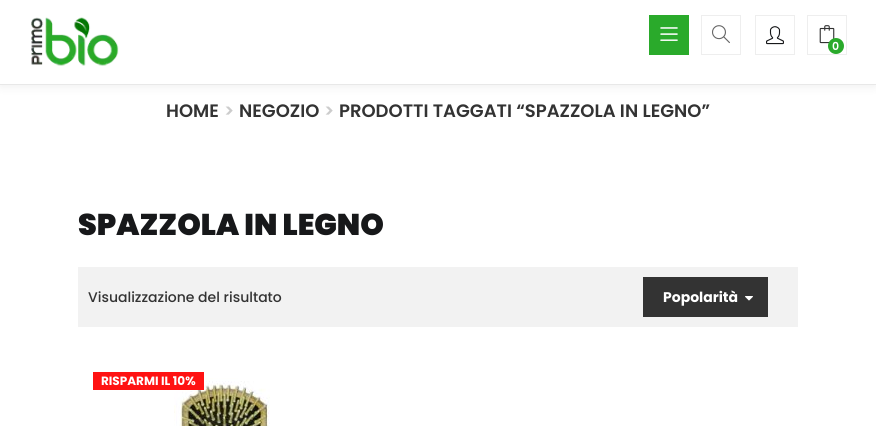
#include <cairo.h>
#include <math.h>
#include <stddef.h>

typedef struct { const char *family; double size; int italic, bold; unsigned color; } style_t;
static cairo_t *ctx;

static void ink(unsigned color) {
    cairo_set_source_rgb(ctx, (color >> 16) / 255.0, (color >> 8 & 255) / 255.0, (color & 255) / 255.0);
}

static void write(double x, double y, const char *s, const style_t *st) {
    cairo_select_font_face(ctx, st->family, st->italic ? CAIRO_FONT_SLANT_ITALIC : CAIRO_FONT_SLANT_NORMAL,
        st->bold ? CAIRO_FONT_WEIGHT_BOLD : CAIRO_FONT_WEIGHT_NORMAL);
    cairo_set_font_size(ctx, st->size);
    ink(st->color);
    cairo_move_to(ctx, x, y);
    cairo_show_text(ctx, s);
}

static void block(double x, double y, double w, double h, unsigned color) {
    ink(color);
    cairo_rectangle(ctx, x, y, w, h);
    cairo_fill(ctx);
}

static void round_path(double x, double y, double w, double h, double r) {
    cairo_new_sub_path(ctx);
    cairo_arc(ctx, x + w - r, y + h - r, r, 0, M_PI / 2);
    cairo_arc(ctx, x + r, y + h - r, r, M_PI / 2, M_PI);
    cairo_arc(ctx, x + r, y + r, r, M_PI, 1.5 * M_PI);
    cairo_arc(ctx, x + w - r, y + r, r, 1.5 * M_PI, 2 * M_PI);
    cairo_close_path(ctx);
}

static void blur_box(double x, double y, double w, double h, double r, double blur, double alpha) {
    cairo_push_group_with_content(ctx, CAIRO_CONTENT_ALPHA);
    cairo_set_operator(ctx, CAIRO_OPERATOR_SOURCE);
    for (int i = 15; i >= -15 && fmin(w, h) + blur * i / 3 > 0; i -= 2) {
        double e = blur * i / 6;
        cairo_set_source_rgba(ctx, 0, 0, 0, alpha * erfc((i - 1) / 8.5) / 2);
        round_path(x - e, y - e, w + 2 * e, h + 2 * e, fmax(0, fmin(r + e + blur * .6, fmin(w, h) / 2 + e)));
        cairo_fill(ctx);
    }
    cairo_pattern_t *soft = cairo_pop_group(ctx);
    cairo_mask(ctx, soft);
    cairo_pattern_destroy(soft);
}

static void paste(const char *path, double x, double y, double w, double h) {
    cairo_surface_t *image = cairo_image_surface_create_from_png(path);
    cairo_save(ctx);
    cairo_set_source_surface(ctx, image, x, y);
    cairo_rectangle(ctx, x, y, w, h);
    cairo_fill(ctx);
    cairo_restore(ctx);
    cairo_surface_destroy(image);
}

static const style_t s1 = {"Poppins SemiBold", 11, 0, 0, 0xffffff};
static const style_t s2 = {"Poppins SemiBold", 18, 0, 0, 0x333333};
static const style_t s3 = {"Poppins SemiBold", 18, 0, 0, 0xcccccc};
static const style_t s4 = {"Poppins Black", 30, 0, 0, 0x17181a};
static const style_t s5 = {"Poppins Medium", 14, 0, 0, 0x333333};
static const style_t s6 = {"Poppins", 14, 0, 1, 0xffffff};
static const style_t s7 = {"Poppins", 12, 0, 1, 0xffffff};

int main(void) {
    cairo_surface_t *surface = cairo_image_surface_create(CAIRO_FORMAT_RGB24, 876, 426);
    ctx = cairo_create(surface);
    cairo_font_options_t *options = cairo_font_options_create();
    cairo_font_options_set_hint_metrics(options, CAIRO_HINT_METRICS_OFF);
    cairo_font_options_set_hint_style(options, CAIRO_HINT_STYLE_NONE);
    cairo_set_font_options(ctx, options);
    cairo_set_miter_limit(ctx, 4);
    ink(0xffffff);
    cairo_paint(ctx);
    ink(0x000000);
    blur_box(0, 2, 876, 85, 0, 5, 0.06);
    block(0, 0, 876, 84, 0xffffff);
    block(0, 84, 876, 1, 0xe8e8e8);
    paste("pic1.png", 31, 17, 88, 49);
    block(649, 15, 40, 40, 0x2aaa2b);
    paste("pic2.png", 660, 27, 18, 14);
    cairo_rectangle(ctx, 701.5, 15.5, 39, 39);
    ink(0xeeeeee);
    cairo_set_line_width(ctx, 1);
    cairo_stroke(ctx);
    paste("pic3.png", 712, 25, 18, 19);
    cairo_rectangle(ctx, 755.5, 15.5, 39, 39);
    cairo_stroke(ctx);
    paste("pic4.png", 766, 26, 18, 19);
    cairo_rectangle(ctx, 807.5, 15.5, 39, 39);
    cairo_stroke(ctx);
    paste("pic5.png", 819, 25, 16, 19);
    ink(0x2aaa2b);
    cairo_arc(ctx, 836, 46, 8, 0, 2 * M_PI);
    cairo_fill(ctx);
    write(832, 50, "0", &s1);
    write(166, 117, "HOME", &s2);
    write(224, 117, ">", &s3);
    write(239, 117, "NEGOZIO", &s2);
    write(324, 117, ">", &s3);
    write(339, 117, "PRODOTTI TAGGATI “SPAZZOLA IN LEGNO”", &s2);
    write(78, 235, "SPAZZOLA IN LEGNO", &s4);
    block(78, 267, 720, 60, 0xf2f2f2);
    write(88, 302, "Visualizzazione del risultato", &s5);
    block(643, 277, 125, 40, 0x333333);
    write(663, 302, "Popolarità", &s6);
    paste("pic6.png", 745, 296, 8, 5);
    paste("pic7.png", 174, 378, 96, 48);
    block(93, 372, 111, 18, 0xff1212);
    write(101, 385, "RISPARMI IL 10%", &s7);
    cairo_surface_write_to_png(surface, "screenshot.png");
    cairo_font_options_destroy(options);
    cairo_destroy(ctx);
    cairo_surface_destroy(surface);
    return 0;
}
